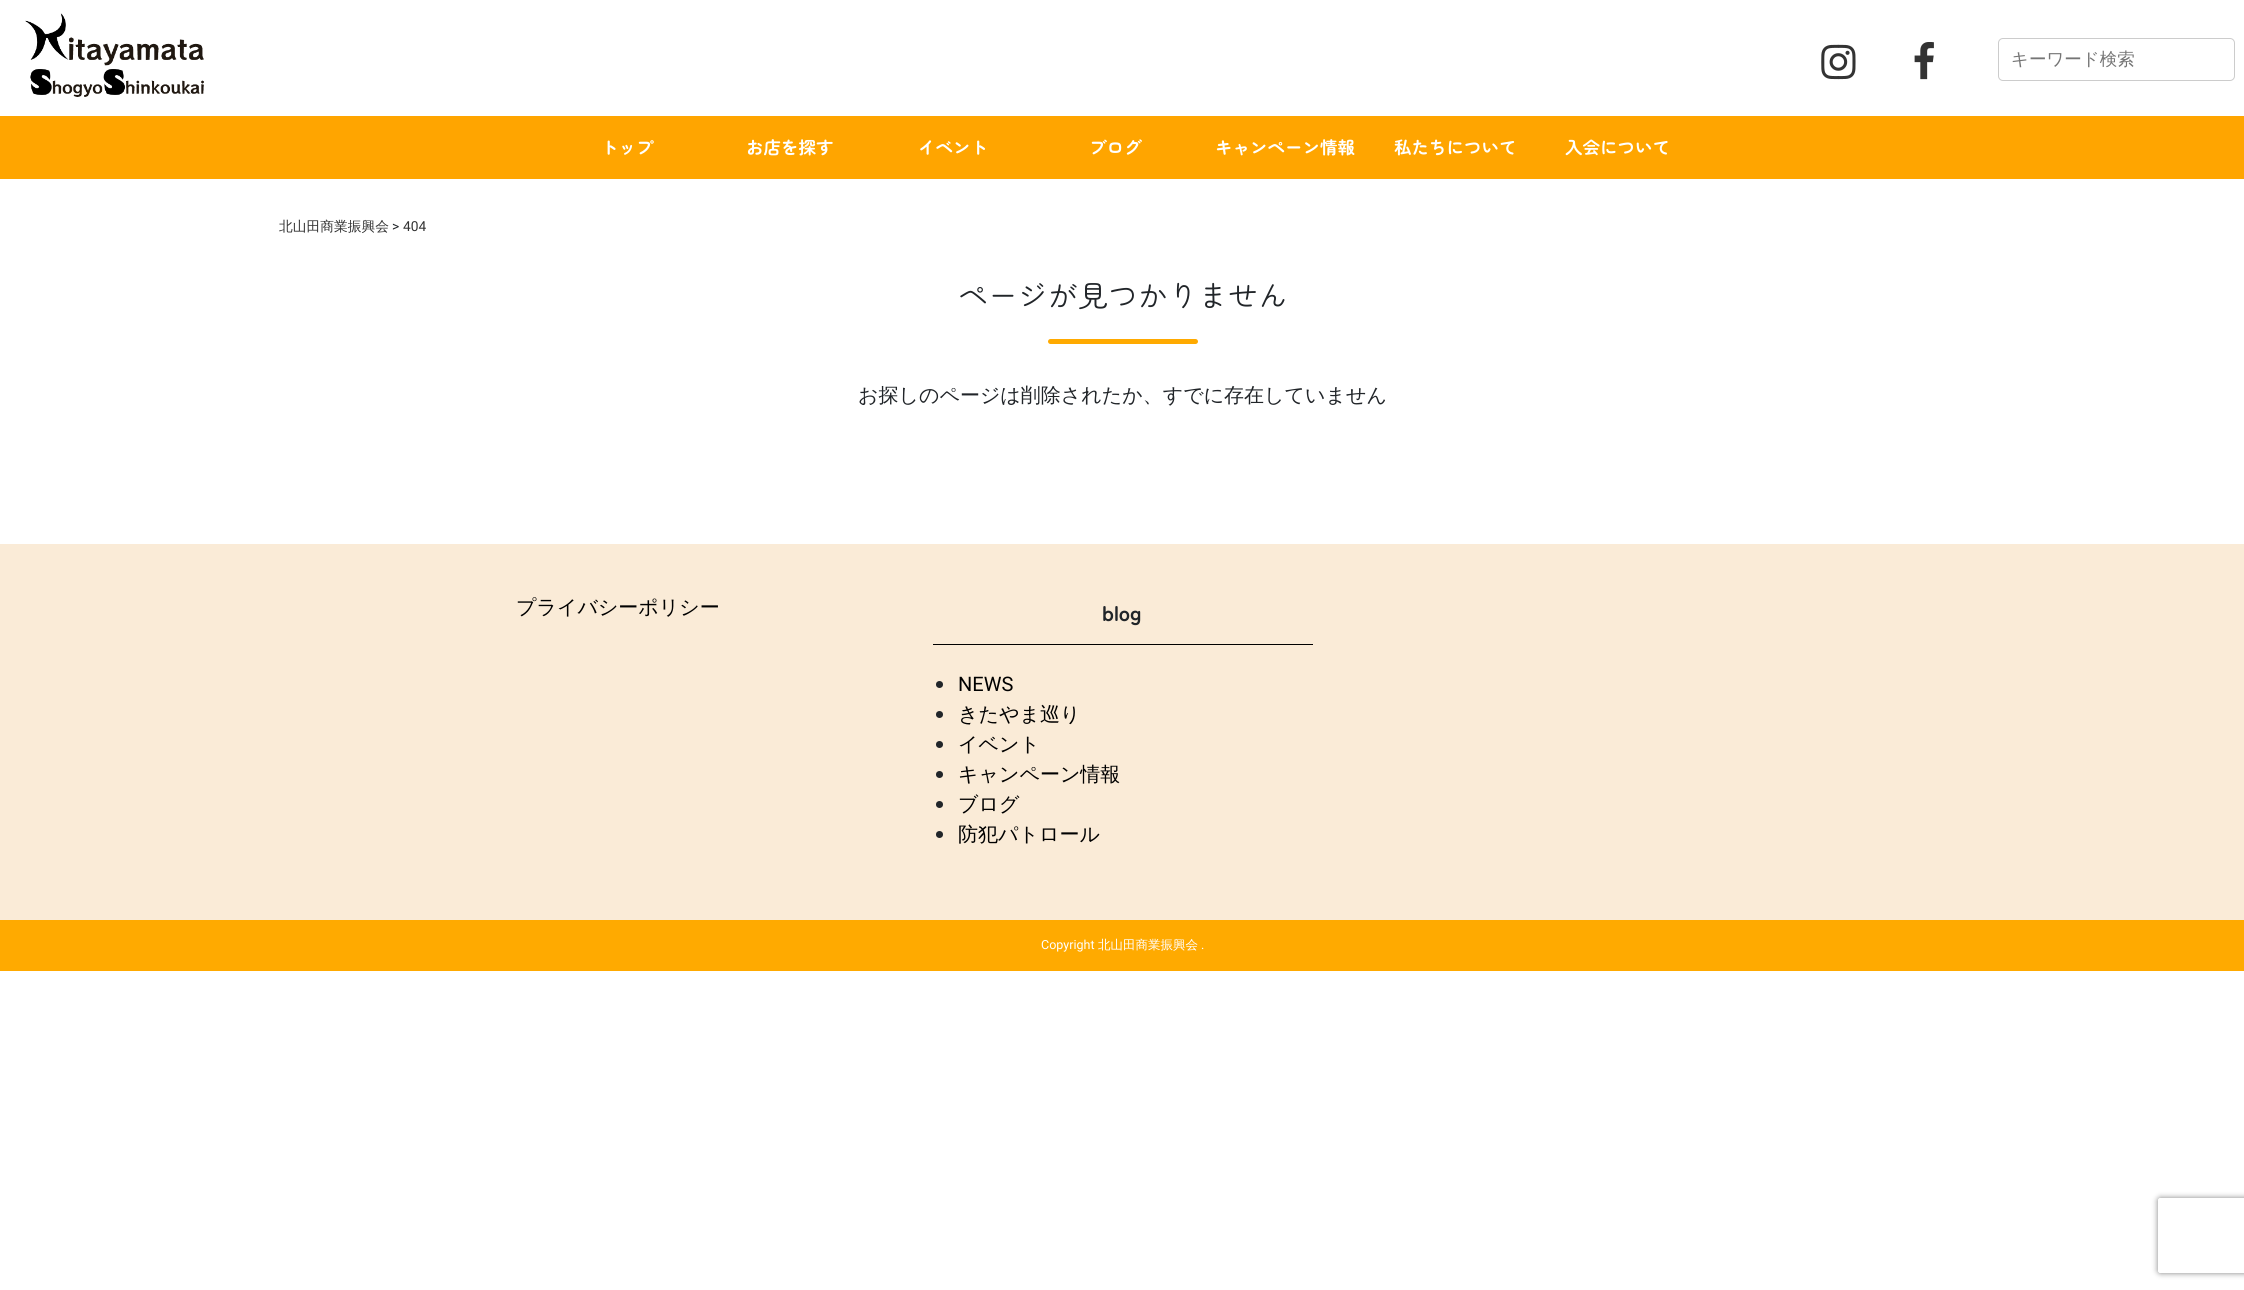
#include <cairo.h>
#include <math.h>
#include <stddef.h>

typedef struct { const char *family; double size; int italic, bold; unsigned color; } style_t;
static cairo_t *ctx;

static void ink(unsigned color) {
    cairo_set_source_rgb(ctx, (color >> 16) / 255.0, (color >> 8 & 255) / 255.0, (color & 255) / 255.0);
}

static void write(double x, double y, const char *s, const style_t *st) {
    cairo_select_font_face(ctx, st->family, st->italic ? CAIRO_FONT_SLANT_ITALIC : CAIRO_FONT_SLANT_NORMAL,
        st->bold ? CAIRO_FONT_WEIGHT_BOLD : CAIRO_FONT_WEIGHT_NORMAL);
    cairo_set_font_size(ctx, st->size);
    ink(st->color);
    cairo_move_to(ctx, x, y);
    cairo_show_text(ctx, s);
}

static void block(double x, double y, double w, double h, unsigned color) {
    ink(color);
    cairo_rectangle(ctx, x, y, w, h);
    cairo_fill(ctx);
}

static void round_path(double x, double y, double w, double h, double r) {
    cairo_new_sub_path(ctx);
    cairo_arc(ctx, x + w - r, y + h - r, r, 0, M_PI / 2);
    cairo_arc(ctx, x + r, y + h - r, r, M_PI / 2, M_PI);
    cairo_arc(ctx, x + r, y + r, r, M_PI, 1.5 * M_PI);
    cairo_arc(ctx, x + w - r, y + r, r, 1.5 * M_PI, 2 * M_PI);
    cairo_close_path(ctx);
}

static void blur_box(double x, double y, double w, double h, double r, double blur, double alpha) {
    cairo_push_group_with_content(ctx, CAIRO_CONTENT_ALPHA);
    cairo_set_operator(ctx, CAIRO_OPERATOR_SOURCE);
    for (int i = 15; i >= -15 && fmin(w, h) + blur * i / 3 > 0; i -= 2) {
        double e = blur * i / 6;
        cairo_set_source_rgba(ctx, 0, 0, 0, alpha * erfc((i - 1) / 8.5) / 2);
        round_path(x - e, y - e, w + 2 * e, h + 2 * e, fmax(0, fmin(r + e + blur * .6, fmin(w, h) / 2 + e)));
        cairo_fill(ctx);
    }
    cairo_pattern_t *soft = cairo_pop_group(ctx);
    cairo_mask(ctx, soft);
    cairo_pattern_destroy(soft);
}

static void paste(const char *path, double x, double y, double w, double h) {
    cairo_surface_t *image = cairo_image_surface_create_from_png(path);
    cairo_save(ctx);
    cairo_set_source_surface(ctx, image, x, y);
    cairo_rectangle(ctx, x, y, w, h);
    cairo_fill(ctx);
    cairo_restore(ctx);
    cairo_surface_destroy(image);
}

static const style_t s1 = {"WenQuanYi Zen Hei Medium", 17.5, 0, 0, 0x757575};
static const style_t s2 = {"Zen Maru Gothic", 17.5, 0, 1, 0xffffff};
static const style_t s3 = {"WenQuanYi Zen Hei Medium", 13.75, 0, 0, 0x333333};
static const style_t s4 = {"Roboto", 13.75, 0, 0, 0x212529};
static const style_t s5 = {"Roboto", 13.75, 0, 0, 0x333333};
static const style_t s6 = {"Zen Maru Gothic", 30, 0, 0, 0x212529};
static const style_t s7 = {"WenQuanYi Zen Hei Medium", 20, 0, 0, 0x212529};
static const style_t s8 = {"WenQuanYi Zen Hei Medium", 20, 0, 0, 0x000000};
static const style_t s9 = {"Zen Maru Gothic", 21, 0, 1, 0x212529};
static const style_t s10 = {"Roboto", 20, 0, 0, 0x000000};
static const style_t s11 = {"Roboto", 12.5, 0, 0, 0xffffff};
static const style_t s12 = {"WenQuanYi Zen Hei Medium", 12.5, 0, 0, 0xffffff};

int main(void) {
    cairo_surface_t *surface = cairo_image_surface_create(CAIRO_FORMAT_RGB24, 2244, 1290);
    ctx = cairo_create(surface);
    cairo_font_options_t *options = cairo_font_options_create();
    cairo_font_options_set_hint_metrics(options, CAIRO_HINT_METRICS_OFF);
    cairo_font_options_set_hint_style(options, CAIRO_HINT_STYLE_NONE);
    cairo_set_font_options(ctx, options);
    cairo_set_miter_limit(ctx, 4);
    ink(0xffffff);
    cairo_paint(ctx);
    paste("pic1.png", 25, 13, 179, 84);
    paste("pic2.png", 1821, 44, 35, 36);
    paste("pic3.png", 1914, 42, 20, 38);
    round_path(1998.5, 38.5, 236, 42, 4.5);
    ink(0xcccccc);
    cairo_set_line_width(ctx, 1);
    cairo_stroke(ctx);
    write(2011, 65, "キーワード検索", &s1);
    block(0, 116, 2244, 63, 0xffa500);
    write(601, 154, "トップ", &s2);
    write(746, 154, "お店を探す", &s2);
    write(918, 154, "イベント", &s2);
    write(1089, 154, "ブログ", &s2);
    write(1215, 154, "キャンペーン情報", &s2);
    write(1394, 154, "私たちについて", &s2);
    write(1565, 154, "入会について", &s2);
    write(279, 231, "北山田商業振興会", &s3);
    write(392, 231, ">", &s4);
    write(403, 231, "404", &s5);
    write(958, 307, "ページが見つかりません", &s6);
    ink(0xffaa00);
    round_path(1048, 339, 150, 5, 2.5);
    cairo_fill(ctx);
    write(858, 402, "お探しのページは削除されたか、すでに存在していません", &s7);
    block(0, 544, 2244, 376, 0xfaebd7);
    write(516, 614, "プライバシーポリシー", &s8);
    block(933, 644, 380, 1, 0x000000);
    write(1102, 621, "blog", &s9);
    cairo_new_path(ctx);
    cairo_arc(ctx, 939.5, 684.5, 3.5, 0, 2 * M_PI);
    cairo_fill(ctx);
    write(958, 691, "NEWS", &s10);
    ink(0x212529);
    cairo_new_path(ctx);
    cairo_arc(ctx, 939.5, 714.5, 3.5, 0, 2 * M_PI);
    cairo_fill(ctx);
    write(958, 721, "きたやま巡り", &s8);
    ink(0x212529);
    cairo_new_path(ctx);
    cairo_arc(ctx, 939.5, 744.5, 3.5, 0, 2 * M_PI);
    cairo_fill(ctx);
    write(958, 751, "イベント", &s8);
    ink(0x212529);
    cairo_new_path(ctx);
    cairo_arc(ctx, 939.5, 774.5, 3.5, 0, 2 * M_PI);
    cairo_fill(ctx);
    write(958, 781, "キャンペーン情報", &s8);
    ink(0x212529);
    cairo_new_path(ctx);
    cairo_arc(ctx, 939.5, 804.5, 3.5, 0, 2 * M_PI);
    cairo_fill(ctx);
    write(958, 811, "ブログ", &s8);
    ink(0x212529);
    cairo_new_path(ctx);
    cairo_arc(ctx, 939.5, 834.5, 3.5, 0, 2 * M_PI);
    cairo_fill(ctx);
    write(958, 841, "防犯パトロール", &s8);
    block(0, 920, 2244, 51, 0xffaa00);
    write(1041, 949, "Copyright", &s11);
    write(1098, 949, "北山田商業振興会", &s12);
    write(1201, 949, ".", &s11);
    cairo_save(ctx);
    cairo_set_fill_rule(ctx, CAIRO_FILL_RULE_EVEN_ODD);
    cairo_new_path(ctx);
    cairo_move_to(ctx, 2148, 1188);
    cairo_line_to(ctx, 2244, 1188);
    cairo_line_to(ctx, 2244, 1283);
    cairo_line_to(ctx, 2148, 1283);
    cairo_close_path(ctx);
    cairo_move_to(ctx, 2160.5, 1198);
    cairo_line_to(ctx, 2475.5, 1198);
    cairo_curve_to(ctx, 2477, 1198, 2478, 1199, 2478, 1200.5);
    cairo_line_to(ctx, 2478, 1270.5);
    cairo_curve_to(ctx, 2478, 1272, 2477, 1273, 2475.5, 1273);
    cairo_line_to(ctx, 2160.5, 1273);
    cairo_curve_to(ctx, 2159, 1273, 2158, 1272, 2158, 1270.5);
    cairo_line_to(ctx, 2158, 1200.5);
    cairo_curve_to(ctx, 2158, 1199, 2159, 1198, 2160.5, 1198);
    cairo_close_path(ctx);
    cairo_clip(ctx);
    ink(0x808080);
    blur_box(2158, 1198, 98, 75, 2.5, 3, 1);
    cairo_restore(ctx);
    cairo_surface_write_to_png(surface, "screenshot.png");
    cairo_font_options_destroy(options);
    cairo_destroy(ctx);
    cairo_surface_destroy(surface);
    return 0;
}
